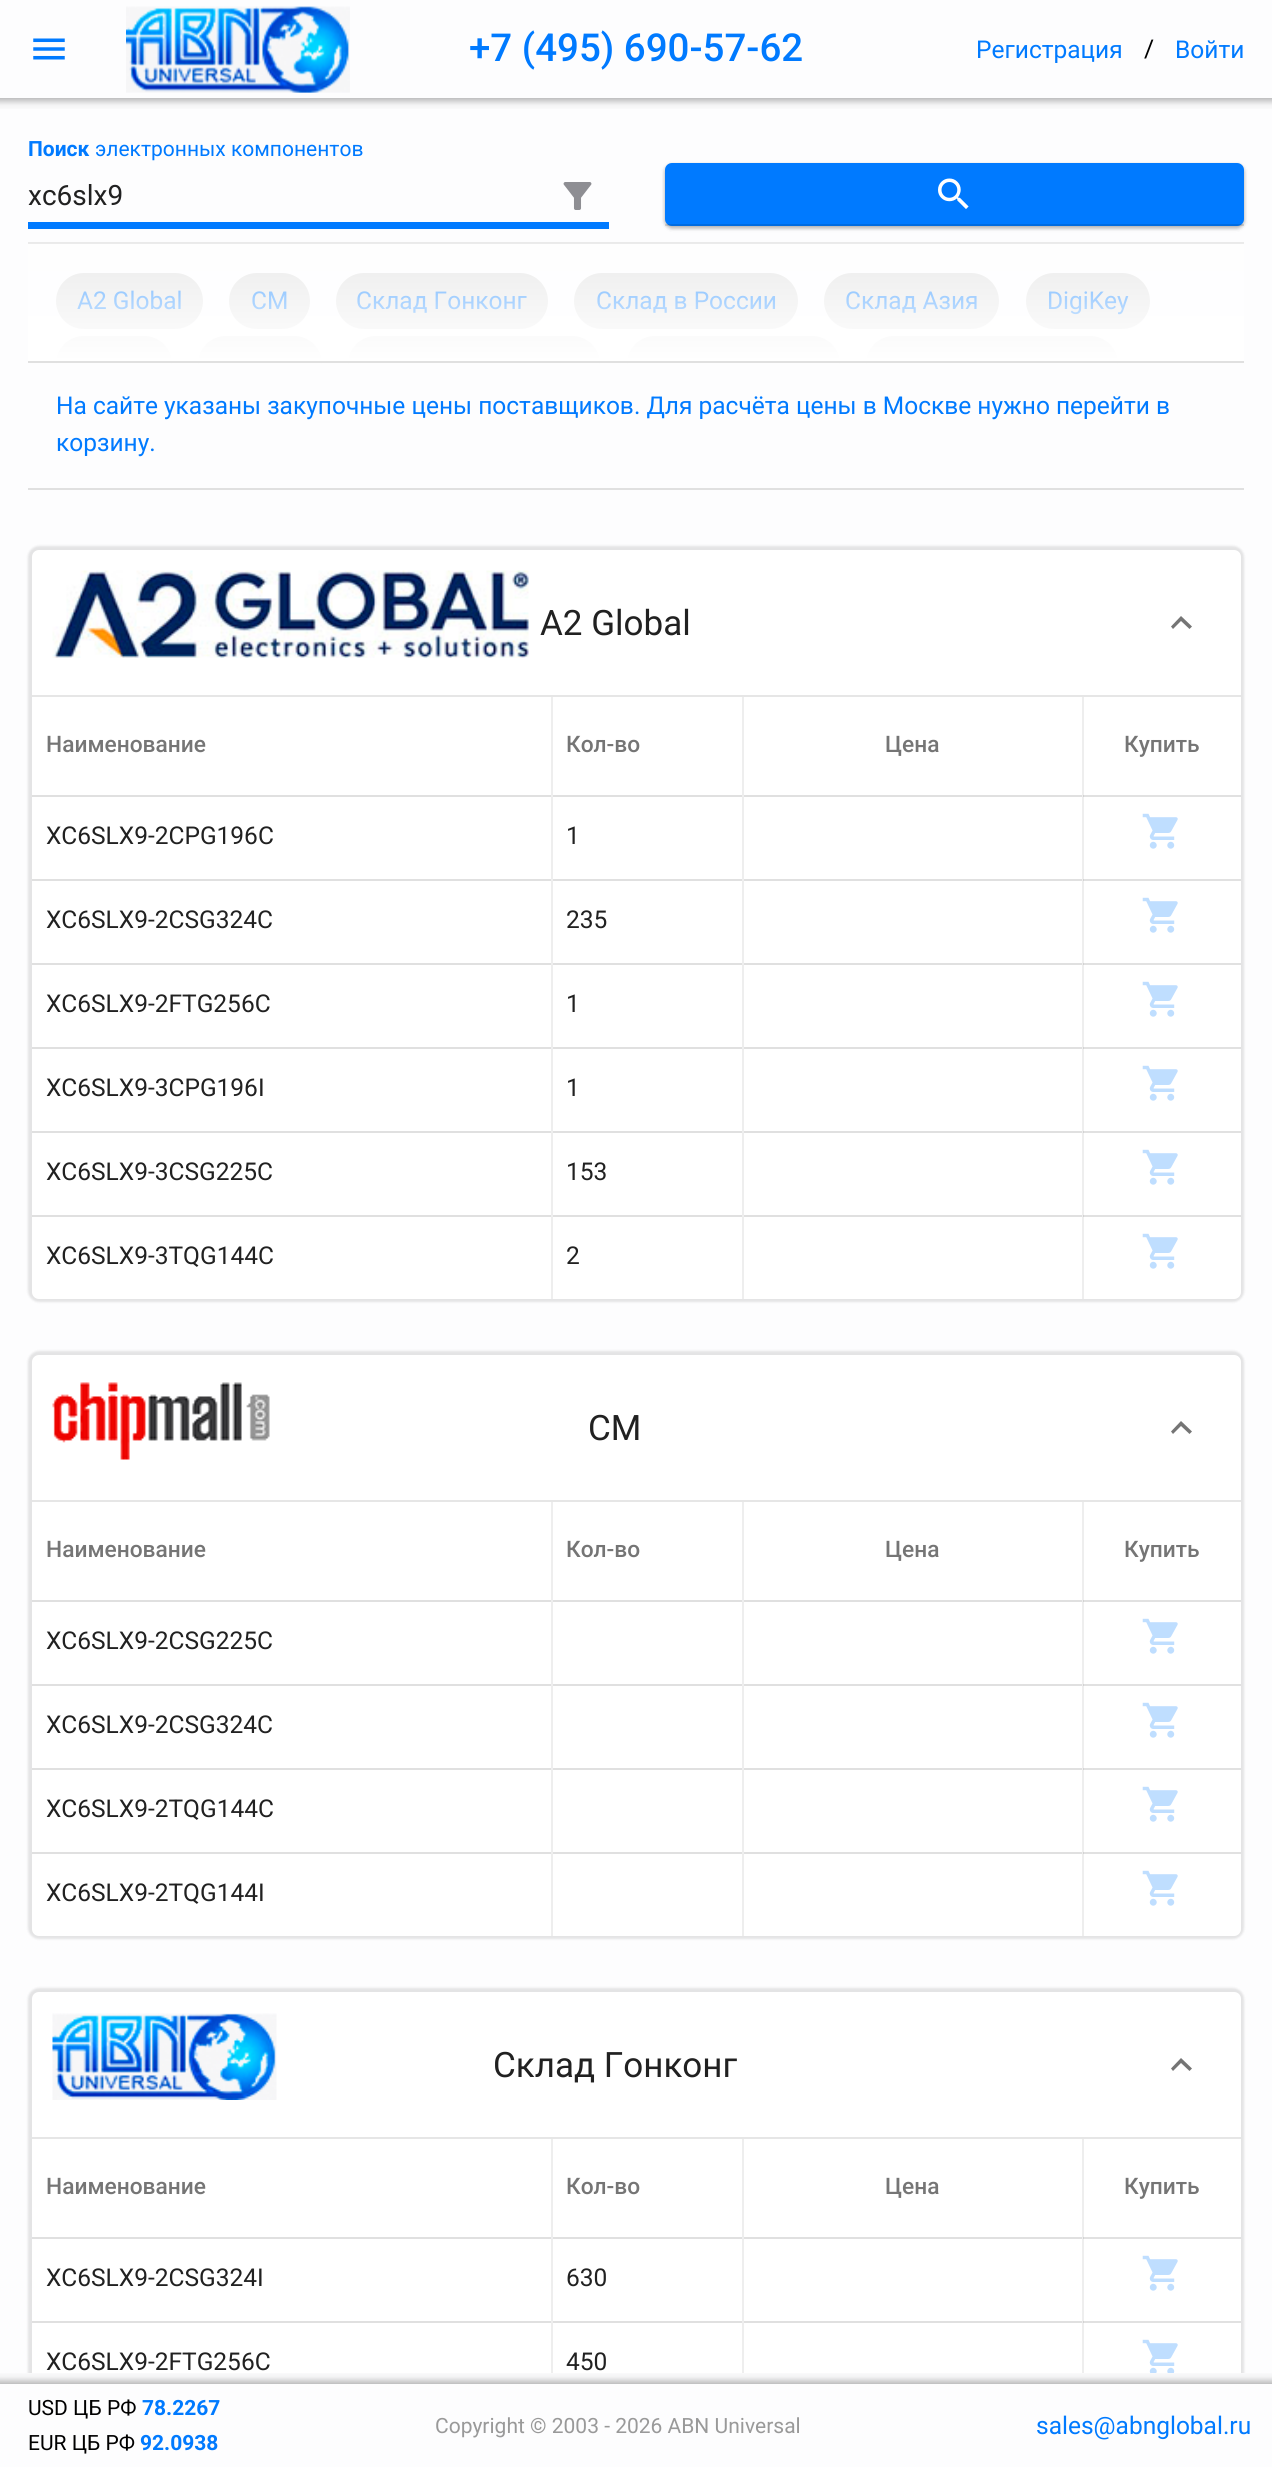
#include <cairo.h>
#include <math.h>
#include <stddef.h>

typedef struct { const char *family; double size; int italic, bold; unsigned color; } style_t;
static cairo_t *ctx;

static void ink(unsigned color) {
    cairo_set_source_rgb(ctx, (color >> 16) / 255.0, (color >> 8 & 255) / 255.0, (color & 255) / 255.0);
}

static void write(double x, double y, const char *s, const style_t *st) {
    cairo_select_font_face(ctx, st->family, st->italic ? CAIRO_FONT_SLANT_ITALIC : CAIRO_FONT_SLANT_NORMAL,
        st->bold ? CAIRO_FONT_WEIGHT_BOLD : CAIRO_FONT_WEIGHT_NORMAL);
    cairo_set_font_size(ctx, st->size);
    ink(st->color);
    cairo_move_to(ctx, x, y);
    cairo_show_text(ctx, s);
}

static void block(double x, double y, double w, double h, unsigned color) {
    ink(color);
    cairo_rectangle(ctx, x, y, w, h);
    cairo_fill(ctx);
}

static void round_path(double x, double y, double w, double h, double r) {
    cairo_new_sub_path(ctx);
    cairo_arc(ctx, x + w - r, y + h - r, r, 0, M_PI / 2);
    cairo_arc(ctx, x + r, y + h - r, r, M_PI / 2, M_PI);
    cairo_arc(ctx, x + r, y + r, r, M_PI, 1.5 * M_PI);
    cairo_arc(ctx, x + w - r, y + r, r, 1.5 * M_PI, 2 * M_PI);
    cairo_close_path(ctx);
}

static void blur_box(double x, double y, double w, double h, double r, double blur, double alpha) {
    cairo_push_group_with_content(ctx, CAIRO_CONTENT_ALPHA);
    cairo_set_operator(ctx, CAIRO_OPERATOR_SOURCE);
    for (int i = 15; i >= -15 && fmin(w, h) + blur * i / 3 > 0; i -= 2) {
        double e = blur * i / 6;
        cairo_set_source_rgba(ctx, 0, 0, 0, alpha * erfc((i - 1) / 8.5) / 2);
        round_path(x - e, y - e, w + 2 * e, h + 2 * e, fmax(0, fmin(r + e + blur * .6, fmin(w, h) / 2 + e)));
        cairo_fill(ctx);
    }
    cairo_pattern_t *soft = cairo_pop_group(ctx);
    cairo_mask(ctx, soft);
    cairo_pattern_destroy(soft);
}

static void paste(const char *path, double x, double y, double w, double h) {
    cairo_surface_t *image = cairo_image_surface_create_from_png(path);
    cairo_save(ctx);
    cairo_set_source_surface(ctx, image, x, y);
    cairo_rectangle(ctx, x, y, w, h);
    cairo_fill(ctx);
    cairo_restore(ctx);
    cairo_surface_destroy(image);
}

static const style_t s1 = {"Roboto Medium", 38.5, 0, 0, 0x007aff};
static const style_t s2 = {"Roboto", 24.5, 0, 0, 0x007aff};
static const style_t s3 = {"Roboto", 24.5, 0, 0, 0x000000};
static const style_t s4 = {"Roboto", 21, 0, 1, 0x007aff};
static const style_t s5 = {"Roboto", 21, 0, 0, 0x007aff};
static const style_t s6 = {"Roboto", 28, 0, 0, 0x212121};
static const style_t s7 = {"Roboto", 35, 0, 0, 0x212121};
static const style_t s8 = {"Roboto Medium", 22.75, 0, 0, 0x757575};
static const style_t s9 = {"Roboto", 24.5, 0, 0, 0x212121};
static const style_t s10 = {"Roboto", 21, 0, 0, 0x000000};
static const style_t s11 = {"Roboto", 21, 0, 0, 0x999999};

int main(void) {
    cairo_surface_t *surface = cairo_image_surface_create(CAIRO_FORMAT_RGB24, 1272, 2467);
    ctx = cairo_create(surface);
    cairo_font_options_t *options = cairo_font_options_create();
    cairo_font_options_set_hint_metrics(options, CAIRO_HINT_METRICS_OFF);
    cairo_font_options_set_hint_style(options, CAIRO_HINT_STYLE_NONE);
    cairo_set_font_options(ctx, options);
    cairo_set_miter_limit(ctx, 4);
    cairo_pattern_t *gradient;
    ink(0xfdfdfe);
    cairo_paint(ctx);
    paste("pic1.png", 33, 38, 32, 22);
    paste("pic2.png", 126, 6, 224, 87);
    write(469, 61, "+7 (495) 690-57-62", &s1);
    write(976, 58, "Регистрация", &s2);
    write(1144, 57, "/", &s3);
    write(1175, 58, "Войти", &s2);
    gradient = cairo_pattern_create_linear(636, 98, 636, 112);
    cairo_pattern_add_color_stop_rgba(gradient, 0, 0.745, 0.745, 0.749, 1);
    cairo_pattern_add_color_stop_rgba(gradient, 0.4, 0.914, 0.914, 0.918, 1);
    cairo_pattern_add_color_stop_rgba(gradient, 0.5, 0.953, 0.953, 0.957, 1);
    cairo_pattern_add_color_stop_rgba(gradient, 0.9, 0.992, 0.992, 0.996, 1);
    cairo_pattern_add_color_stop_rgba(gradient, 1, 0.992, 0.992, 0.996, 1);
    cairo_set_source(ctx, gradient);
    cairo_pattern_destroy(gradient);
    cairo_rectangle(ctx, 0, 98, 1272, 11);
    cairo_fill(ctx);
    write(28, 156, "Поиск", &s4);
    write(95, 156, "электронных компонентов", &s5);
    write(28, 205, "xc6slx9", &s6);
    paste("pic3.png", 563, 182, 29, 28);
    block(28, 222, 581, 7, 0x007aff);
    ink(0x000000);
    blur_box(665, 165, 579, 63, 7, 2, 0.24);
    blur_box(665, 165, 579, 63, 7, 2.5, 0.12);
    ink(0x007aff);
    round_path(665, 163, 579, 63, 7);
    cairo_fill(ctx);
    paste("pic4.png", 938, 178, 31, 31);
    cairo_set_source_rgba(ctx, 0, 0, 0, 0.12);
    cairo_rectangle(ctx, 665, 224, 579, 2);
    cairo_fill(ctx);
    block(28, 242, 1216, 2, 0xe0e0e0);
    round_path(56, 273, 147, 56, 28);
    cairo_fill(ctx);
    write(77, 309, "A2 Global", &s2);
    ink(0xe0e0e0);
    round_path(229, 273, 81, 56, 28);
    cairo_fill(ctx);
    write(251, 309, "CM", &s2);
    ink(0xe0e0e0);
    round_path(336, 273, 212, 56, 28);
    cairo_fill(ctx);
    write(356, 309, "Склад Гонконг", &s2);
    ink(0xe0e0e0);
    round_path(574, 273, 224, 56, 28);
    cairo_fill(ctx);
    write(596, 309, "Склад в России", &s2);
    ink(0xe0e0e0);
    round_path(824, 273, 175, 56, 28);
    cairo_fill(ctx);
    write(845, 309, "Склад Азия", &s2);
    ink(0xe0e0e0);
    round_path(1026, 273, 124, 56, 28);
    cairo_fill(ctx);
    write(1047, 309, "DigiKey", &s2);
    ink(0xe0e0e0);
    cairo_new_path(ctx);
    cairo_move_to(ctx, 84, 336);
    cairo_line_to(ctx, 144, 336);
    cairo_curve_to(ctx, 159.5, 336, 172, 348.5, 172, 364);
    cairo_line_to(ctx, 172, 361);
    cairo_line_to(ctx, 56, 361);
    cairo_line_to(ctx, 56, 364);
    cairo_curve_to(ctx, 56, 348.5, 68.5, 336, 84, 336);
    cairo_close_path(ctx);
    cairo_fill(ctx);
    cairo_new_path(ctx);
    cairo_move_to(ctx, 226, 336);
    cairo_line_to(ctx, 294, 336);
    cairo_curve_to(ctx, 309.5, 336, 322, 348.5, 322, 364);
    cairo_line_to(ctx, 322, 361);
    cairo_line_to(ctx, 198, 361);
    cairo_line_to(ctx, 198, 364);
    cairo_curve_to(ctx, 198, 348.5, 210.5, 336, 226, 336);
    cairo_close_path(ctx);
    cairo_fill(ctx);
    cairo_new_path(ctx);
    cairo_move_to(ctx, 376, 336);
    cairo_line_to(ctx, 572, 336);
    cairo_curve_to(ctx, 587.5, 336, 600, 348.5, 600, 364);
    cairo_line_to(ctx, 600, 361);
    cairo_line_to(ctx, 348, 361);
    cairo_line_to(ctx, 348, 364);
    cairo_curve_to(ctx, 348, 348.5, 360.5, 336, 376, 336);
    cairo_close_path(ctx);
    cairo_fill(ctx);
    cairo_new_path(ctx);
    cairo_move_to(ctx, 655, 336);
    cairo_line_to(ctx, 812, 336);
    cairo_curve_to(ctx, 827.5, 336, 840, 348.5, 840, 364);
    cairo_line_to(ctx, 840, 361);
    cairo_line_to(ctx, 627, 361);
    cairo_line_to(ctx, 627, 364);
    cairo_curve_to(ctx, 627, 348.5, 639.5, 336, 655, 336);
    cairo_close_path(ctx);
    cairo_fill(ctx);
    cairo_new_path(ctx);
    cairo_move_to(ctx, 894, 336);
    cairo_line_to(ctx, 1090, 336);
    cairo_curve_to(ctx, 1105.5, 336, 1118, 348.5, 1118, 364);
    cairo_line_to(ctx, 1118, 361);
    cairo_line_to(ctx, 866, 361);
    cairo_line_to(ctx, 866, 364);
    cairo_curve_to(ctx, 866, 348.5, 878.5, 336, 894, 336);
    cairo_close_path(ctx);
    cairo_fill(ctx);
    gradient = cairo_pattern_create_linear(636, 182, 636, 361);
    cairo_pattern_add_color_stop_rgba(gradient, 0, 1, 1, 1, 0);
    cairo_pattern_add_color_stop_rgba(gradient, 1, 1, 1, 1, 1);
    cairo_set_source(ctx, gradient);
    cairo_pattern_destroy(gradient);
    cairo_rectangle(ctx, 28, 242, 1216, 119);
    cairo_fill(ctx);
    block(28, 361, 1216, 2, 0xe0e0e0);
    write(56, 414, "На сайте указаны закупочные цены поставщиков. Для расчёта цены в Москве нужно перейти в", &s2);
    write(56, 451, "корзину.", &s2);
    block(28, 488, 1216, 2, 0xe0e0e0);
    ink(0x000000);
    blur_box(28, 546, 1216, 756, 11, 1, 0.1);
    ink(0xffffff);
    round_path(32, 550, 1209, 749, 7);
    cairo_fill(ctx);
    paste("pic5.png", 52, 570, 477, 88);
    write(540, 635, "A2 Global", &s7);
    ink(0x757575);
    cairo_new_path(ctx);
    cairo_move_to(ctx, 1181, 616);
    cairo_line_to(ctx, 1192, 626.5);
    cairo_line_to(ctx, 1189.5, 629);
    cairo_line_to(ctx, 1181, 621);
    cairo_line_to(ctx, 1173, 629);
    cairo_line_to(ctx, 1171, 626.5);
    cairo_close_path(ctx);
    cairo_fill(ctx);
    block(32, 695, 1209, 2, 0xe6e6e6);
    write(46, 752, "Наименование", &s8);
    write(566, 752, "Кол-во", &s8);
    write(885, 752, "Цена", &s8);
    write(1124, 752, "Купить", &s8);
    block(32, 795, 519, 2, 0xe0e0e0);
    write(46, 844, "XC6SLX9-2CPG196C", &s9);
    block(553, 795, 189, 2, 0xe0e0e0);
    write(566, 844, "1", &s9);
    block(744, 795, 338, 2, 0xe0e0e0);
    block(1082, 697, 2, 602, 0xeeeeee);
    cairo_set_source_rgba(ctx, 0, 0, 0, 0.12);
    cairo_rectangle(ctx, 1083, 795, 158, 2);
    cairo_fill(ctx);
    paste("pic6.png", 1142, 813, 36, 36);
    block(32, 879, 519, 2, 0xe0e0e0);
    write(46, 928, "XC6SLX9-2CSG324C", &s9);
    block(553, 879, 189, 2, 0xe0e0e0);
    write(566, 928, "235", &s9);
    block(744, 879, 338, 2, 0xe0e0e0);
    cairo_set_source_rgba(ctx, 0, 0, 0, 0.12);
    cairo_rectangle(ctx, 1083, 879, 158, 2);
    cairo_fill(ctx);
    paste("pic6.png", 1142, 897, 36, 36);
    block(32, 963, 519, 2, 0xe0e0e0);
    write(46, 1012, "XC6SLX9-2FTG256C", &s9);
    block(553, 963, 189, 2, 0xe0e0e0);
    write(566, 1012, "1", &s9);
    block(744, 963, 338, 2, 0xe0e0e0);
    cairo_set_source_rgba(ctx, 0, 0, 0, 0.12);
    cairo_rectangle(ctx, 1083, 963, 158, 2);
    cairo_fill(ctx);
    paste("pic6.png", 1142, 981, 36, 36);
    block(32, 1047, 519, 2, 0xe0e0e0);
    write(46, 1096, "XC6SLX9-3CPG196I", &s9);
    block(553, 1047, 189, 2, 0xe0e0e0);
    write(566, 1096, "1", &s9);
    block(744, 1047, 338, 2, 0xe0e0e0);
    cairo_set_source_rgba(ctx, 0, 0, 0, 0.12);
    cairo_rectangle(ctx, 1083, 1047, 158, 2);
    cairo_fill(ctx);
    paste("pic6.png", 1142, 1065, 36, 36);
    block(32, 1131, 519, 2, 0xe0e0e0);
    write(46, 1180, "XC6SLX9-3CSG225C", &s9);
    block(553, 1131, 189, 2, 0xe0e0e0);
    write(566, 1180, "153", &s9);
    block(744, 1131, 338, 2, 0xe0e0e0);
    cairo_set_source_rgba(ctx, 0, 0, 0, 0.12);
    cairo_rectangle(ctx, 1083, 1131, 158, 2);
    cairo_fill(ctx);
    paste("pic6.png", 1142, 1149, 36, 36);
    block(32, 1215, 519, 2, 0xe0e0e0);
    write(46, 1264, "XC6SLX9-3TQG144C", &s9);
    block(551, 697, 2, 602, 0xeeeeee);
    block(553, 1215, 189, 2, 0xe0e0e0);
    write(566, 1264, "2", &s9);
    block(742, 697, 2, 602, 0xeeeeee);
    block(744, 1215, 338, 2, 0xe0e0e0);
    cairo_set_source_rgba(ctx, 0, 0, 0, 0.12);
    cairo_rectangle(ctx, 1083, 1215, 158, 2);
    cairo_fill(ctx);
    paste("pic6.png", 1142, 1233, 36, 36);
    ink(0x000000);
    blur_box(28, 1351, 1216, 588, 11, 1, 0.1);
    ink(0xffffff);
    round_path(32, 1355, 1209, 581, 7);
    cairo_fill(ctx);
    paste("pic7.png", 52, 1382, 218, 78);
    write(588, 1440, "CM", &s7);
    ink(0x757575);
    cairo_new_path(ctx);
    cairo_move_to(ctx, 1181, 1421);
    cairo_line_to(ctx, 1192, 1431.5);
    cairo_line_to(ctx, 1189.5, 1434);
    cairo_line_to(ctx, 1181, 1426);
    cairo_line_to(ctx, 1173, 1434);
    cairo_line_to(ctx, 1171, 1431.5);
    cairo_close_path(ctx);
    cairo_fill(ctx);
    block(32, 1500, 1209, 2, 0xe6e6e6);
    write(46, 1557, "Наименование", &s8);
    write(566, 1557, "Кол-во", &s8);
    write(885, 1557, "Цена", &s8);
    write(1124, 1557, "Купить", &s8);
    block(32, 1600, 519, 2, 0xe0e0e0);
    write(46, 1649, "XC6SLX9-2CSG225C", &s9);
    block(553, 1600, 189, 2, 0xe0e0e0);
    block(744, 1600, 338, 2, 0xe0e0e0);
    block(1082, 1502, 2, 434, 0xeeeeee);
    cairo_set_source_rgba(ctx, 0, 0, 0, 0.12);
    cairo_rectangle(ctx, 1083, 1600, 158, 2);
    cairo_fill(ctx);
    paste("pic6.png", 1142, 1618, 36, 36);
    block(32, 1684, 519, 2, 0xe0e0e0);
    write(46, 1733, "XC6SLX9-2CSG324C", &s9);
    block(553, 1684, 189, 2, 0xe0e0e0);
    block(744, 1684, 338, 2, 0xe0e0e0);
    cairo_set_source_rgba(ctx, 0, 0, 0, 0.12);
    cairo_rectangle(ctx, 1083, 1684, 158, 2);
    cairo_fill(ctx);
    paste("pic6.png", 1142, 1702, 36, 36);
    block(32, 1768, 519, 2, 0xe0e0e0);
    write(46, 1817, "XC6SLX9-2TQG144C", &s9);
    block(553, 1768, 189, 2, 0xe0e0e0);
    block(744, 1768, 338, 2, 0xe0e0e0);
    cairo_set_source_rgba(ctx, 0, 0, 0, 0.12);
    cairo_rectangle(ctx, 1083, 1768, 158, 2);
    cairo_fill(ctx);
    paste("pic6.png", 1142, 1786, 36, 36);
    block(32, 1852, 519, 2, 0xe0e0e0);
    write(46, 1901, "XC6SLX9-2TQG144I", &s9);
    block(551, 1502, 2, 434, 0xeeeeee);
    block(553, 1852, 189, 2, 0xe0e0e0);
    block(742, 1502, 2, 434, 0xeeeeee);
    block(744, 1852, 338, 2, 0xe0e0e0);
    cairo_set_source_rgba(ctx, 0, 0, 0, 0.12);
    cairo_rectangle(ctx, 1083, 1852, 158, 2);
    cairo_fill(ctx);
    paste("pic6.png", 1142, 1870, 36, 36);
    gradient = cairo_pattern_create_linear(636, 2384, 636, 2370);
    cairo_pattern_add_color_stop_rgba(gradient, 0, 0.745, 0.745, 0.749, 1);
    cairo_pattern_add_color_stop_rgba(gradient, 0.4, 0.914, 0.914, 0.918, 1);
    cairo_pattern_add_color_stop_rgba(gradient, 0.5, 0.953, 0.953, 0.957, 1);
    cairo_pattern_add_color_stop_rgba(gradient, 0.9, 0.992, 0.992, 0.996, 1);
    cairo_pattern_add_color_stop_rgba(gradient, 1, 0.992, 0.992, 0.996, 1);
    cairo_set_source(ctx, gradient);
    cairo_pattern_destroy(gradient);
    cairo_rectangle(ctx, 0, 2373, 1272, 11);
    cairo_fill(ctx);
    cairo_save(ctx);
    cairo_rectangle(ctx, 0, 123, 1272, 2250);
    cairo_clip(ctx);
    ink(0x000000);
    blur_box(28, 1988, 1216, 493, 11, 1, 0.1);
    cairo_restore(ctx);
    ink(0xffffff);
    cairo_new_path(ctx);
    cairo_move_to(ctx, 39, 1992);
    cairo_line_to(ctx, 1234, 1992);
    cairo_curve_to(ctx, 1238, 1992, 1241, 1995, 1241, 1999);
    cairo_line_to(ctx, 1241, 2373);
    cairo_line_to(ctx, 32, 2373);
    cairo_line_to(ctx, 32, 1999);
    cairo_curve_to(ctx, 32, 1995, 35, 1992, 39, 1992);
    cairo_close_path(ctx);
    cairo_fill(ctx);
    paste("pic8.png", 52, 2013, 225, 87);
    write(493, 2077, "Склад Гонконг", &s7);
    ink(0x757575);
    cairo_new_path(ctx);
    cairo_move_to(ctx, 1181, 2058);
    cairo_line_to(ctx, 1192, 2068.5);
    cairo_line_to(ctx, 1189.5, 2071);
    cairo_line_to(ctx, 1181, 2063);
    cairo_line_to(ctx, 1173, 2071);
    cairo_line_to(ctx, 1171, 2068.5);
    cairo_close_path(ctx);
    cairo_fill(ctx);
    block(32, 2137, 1209, 2, 0xe6e6e6);
    write(46, 2194, "Наименование", &s8);
    write(566, 2194, "Кол-во", &s8);
    write(885, 2194, "Цена", &s8);
    write(1124, 2194, "Купить", &s8);
    block(32, 2237, 519, 2, 0xe0e0e0);
    write(46, 2286, "XC6SLX9-2CSG324I", &s9);
    block(553, 2237, 189, 2, 0xe0e0e0);
    write(566, 2286, "630", &s9);
    block(744, 2237, 338, 2, 0xe0e0e0);
    block(1082, 2139, 2, 234, 0xeeeeee);
    cairo_set_source_rgba(ctx, 0, 0, 0, 0.12);
    cairo_rectangle(ctx, 1083, 2237, 158, 2);
    cairo_fill(ctx);
    paste("pic6.png", 1142, 2255, 36, 36);
    block(32, 2321, 519, 2, 0xe0e0e0);
    write(46, 2370, "XC6SLX9-2FTG256C", &s9);
    block(551, 2139, 2, 234, 0xeeeeee);
    block(553, 2321, 189, 2, 0xe0e0e0);
    write(566, 2370, "450", &s9);
    block(742, 2139, 2, 234, 0xeeeeee);
    block(744, 2321, 338, 2, 0xe0e0e0);
    cairo_set_source_rgba(ctx, 0, 0, 0, 0.12);
    cairo_rectangle(ctx, 1083, 2321, 158, 2);
    cairo_fill(ctx);
    paste("pic9.png", 1142, 2339, 36, 34);
    write(28, 2415, "USD ЦБ РФ", &s10);
    write(142, 2415, "78.2267", &s4);
    write(28, 2450, "EUR ЦБ РФ", &s10);
    write(140, 2450, "92.0938", &s4);
    write(435, 2433, "Copyright © 2003 - 2026 ABN Universal", &s11);
    write(1036, 2434, "sales@abnglobal.ru", &s2);
    cairo_surface_write_to_png(surface, "screenshot.png");
    cairo_font_options_destroy(options);
    cairo_destroy(ctx);
    cairo_surface_destroy(surface);
    return 0;
}
